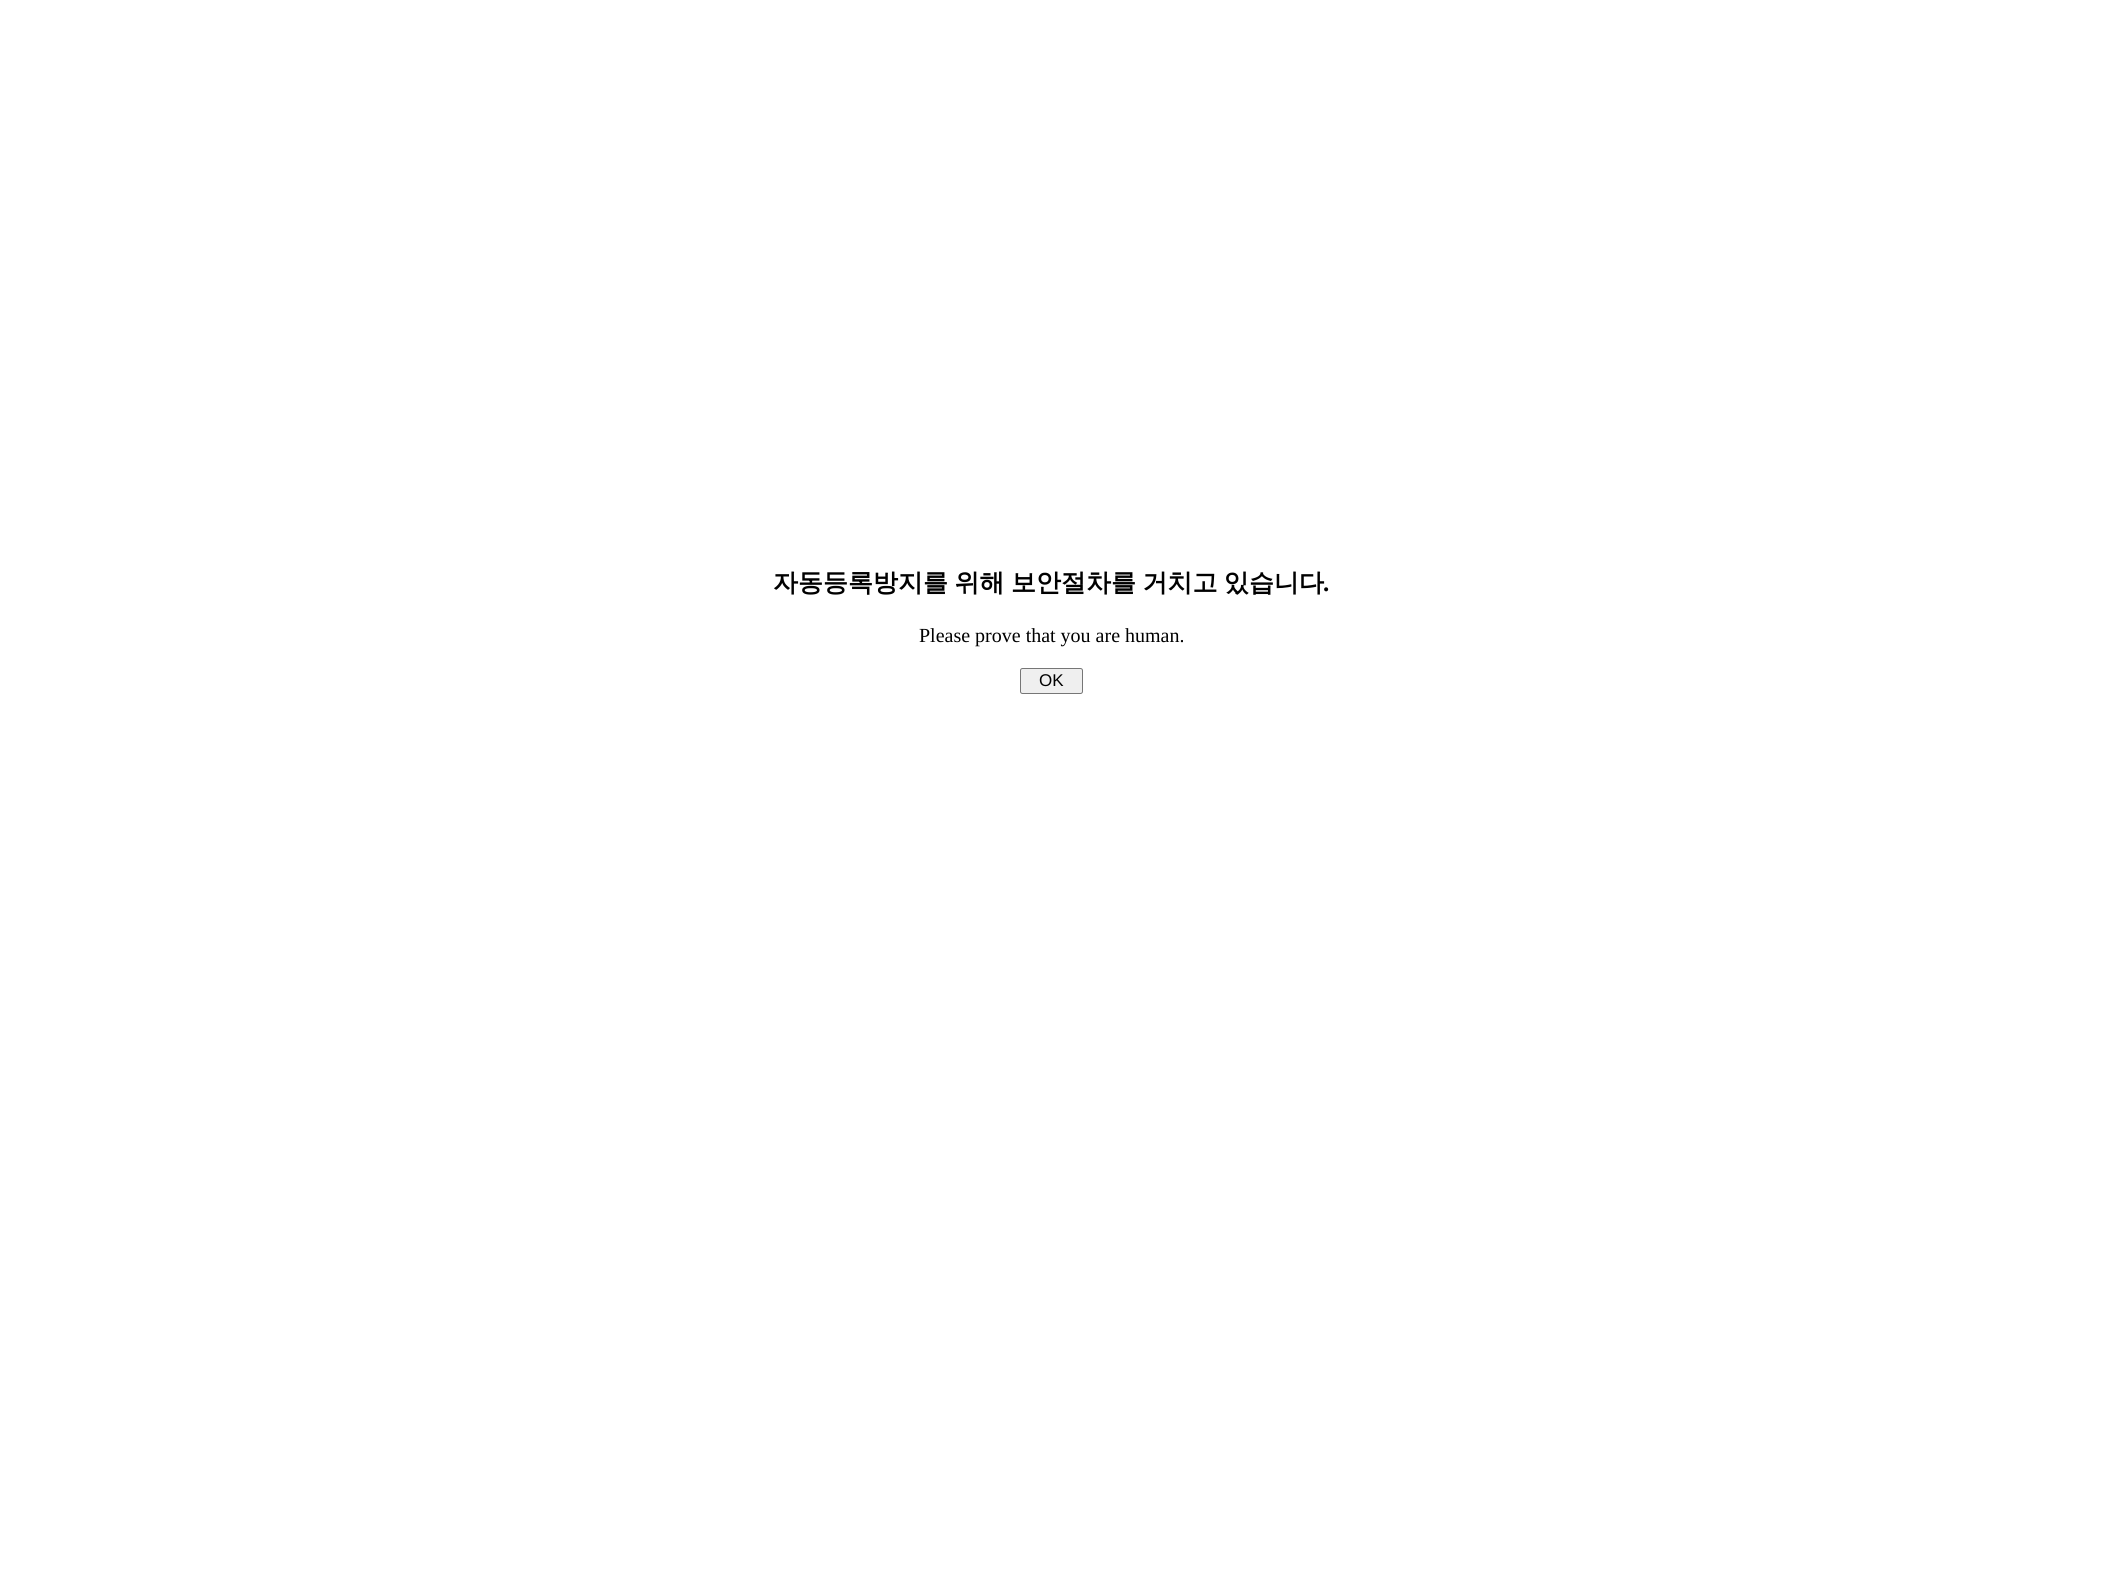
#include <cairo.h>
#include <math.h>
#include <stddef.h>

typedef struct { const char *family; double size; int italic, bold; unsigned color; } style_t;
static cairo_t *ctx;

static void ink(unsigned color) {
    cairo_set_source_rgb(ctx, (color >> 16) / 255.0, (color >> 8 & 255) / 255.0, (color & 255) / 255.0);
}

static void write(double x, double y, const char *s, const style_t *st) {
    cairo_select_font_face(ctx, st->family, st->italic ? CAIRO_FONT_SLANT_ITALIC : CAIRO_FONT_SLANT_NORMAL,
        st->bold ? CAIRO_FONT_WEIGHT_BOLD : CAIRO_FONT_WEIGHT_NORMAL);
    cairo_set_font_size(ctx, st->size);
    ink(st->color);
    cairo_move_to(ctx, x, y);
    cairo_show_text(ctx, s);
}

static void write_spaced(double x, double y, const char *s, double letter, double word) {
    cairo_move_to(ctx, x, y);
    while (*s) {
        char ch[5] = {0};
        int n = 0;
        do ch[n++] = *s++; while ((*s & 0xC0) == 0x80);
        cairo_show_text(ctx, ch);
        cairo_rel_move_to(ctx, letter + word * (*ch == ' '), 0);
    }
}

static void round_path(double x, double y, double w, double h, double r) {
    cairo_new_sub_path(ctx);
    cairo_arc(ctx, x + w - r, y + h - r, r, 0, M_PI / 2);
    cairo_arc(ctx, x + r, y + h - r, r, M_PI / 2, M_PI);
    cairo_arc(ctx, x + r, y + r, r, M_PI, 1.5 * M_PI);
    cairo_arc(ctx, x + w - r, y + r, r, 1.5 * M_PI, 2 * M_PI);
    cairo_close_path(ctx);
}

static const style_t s1 = {"Liberation Serif", 25, 0, 1, 0x000000};
static const style_t s2 = {"Liberation Serif", 20, 0, 0, 0x000000};
static const style_t s3 = {"Liberation Sans", 17, 0, 0, 0x000000};

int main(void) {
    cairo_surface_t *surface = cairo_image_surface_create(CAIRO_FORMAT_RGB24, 2102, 1593);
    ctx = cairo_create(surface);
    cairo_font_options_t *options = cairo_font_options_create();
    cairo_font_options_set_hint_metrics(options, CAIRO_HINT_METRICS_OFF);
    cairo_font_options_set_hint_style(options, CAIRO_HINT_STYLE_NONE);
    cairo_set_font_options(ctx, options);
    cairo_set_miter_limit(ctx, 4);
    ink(0xffffff);
    cairo_paint(ctx);
    cairo_select_font_face(ctx, "WenQuanYi Zen Hei", CAIRO_FONT_SLANT_NORMAL, CAIRO_FONT_WEIGHT_BOLD);
    cairo_set_font_size(ctx, 25);
    ink(0x000000);
    write_spaced(773, 591, "자동등록방지를 위해 보안절차를 거치고 있습니다", 0, -1);
    write(1323, 591, ".", &s1);
    write(919, 642, "Please prove that you are human.", &s2);
    ink(0xefefef);
    round_path(1020.5, 668.5, 62, 25, 2);
    cairo_fill_preserve(ctx);
    ink(0x767676);
    cairo_set_line_width(ctx, 1);
    cairo_stroke(ctx);
    write(1039, 686, "OK", &s3);
    cairo_surface_write_to_png(surface, "screenshot.png");
    cairo_font_options_destroy(options);
    cairo_destroy(ctx);
    cairo_surface_destroy(surface);
    return 0;
}
